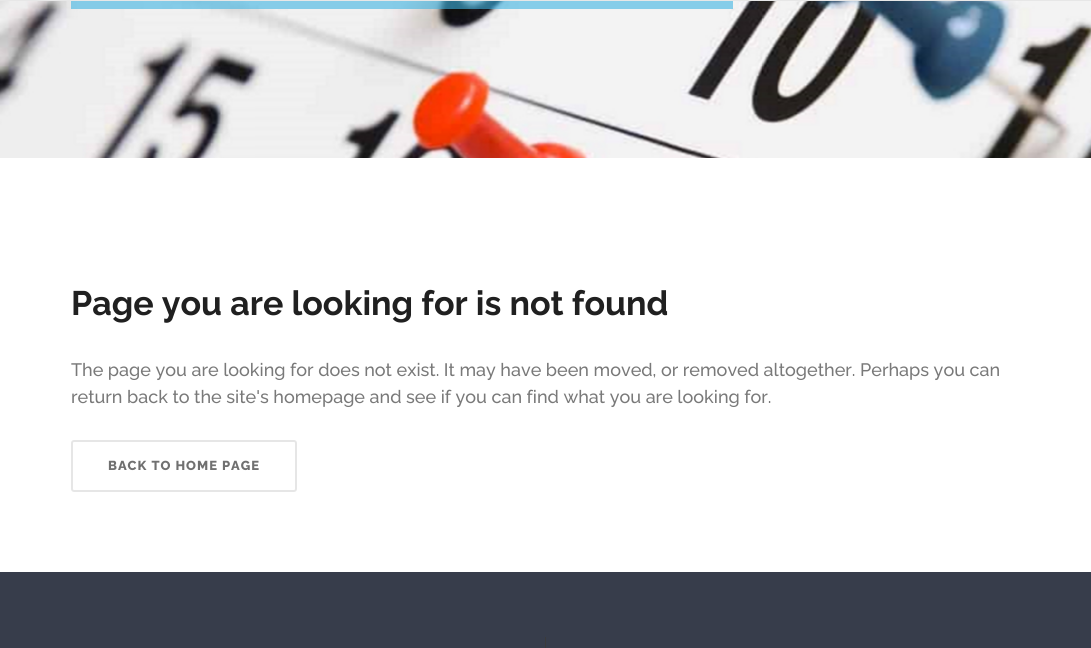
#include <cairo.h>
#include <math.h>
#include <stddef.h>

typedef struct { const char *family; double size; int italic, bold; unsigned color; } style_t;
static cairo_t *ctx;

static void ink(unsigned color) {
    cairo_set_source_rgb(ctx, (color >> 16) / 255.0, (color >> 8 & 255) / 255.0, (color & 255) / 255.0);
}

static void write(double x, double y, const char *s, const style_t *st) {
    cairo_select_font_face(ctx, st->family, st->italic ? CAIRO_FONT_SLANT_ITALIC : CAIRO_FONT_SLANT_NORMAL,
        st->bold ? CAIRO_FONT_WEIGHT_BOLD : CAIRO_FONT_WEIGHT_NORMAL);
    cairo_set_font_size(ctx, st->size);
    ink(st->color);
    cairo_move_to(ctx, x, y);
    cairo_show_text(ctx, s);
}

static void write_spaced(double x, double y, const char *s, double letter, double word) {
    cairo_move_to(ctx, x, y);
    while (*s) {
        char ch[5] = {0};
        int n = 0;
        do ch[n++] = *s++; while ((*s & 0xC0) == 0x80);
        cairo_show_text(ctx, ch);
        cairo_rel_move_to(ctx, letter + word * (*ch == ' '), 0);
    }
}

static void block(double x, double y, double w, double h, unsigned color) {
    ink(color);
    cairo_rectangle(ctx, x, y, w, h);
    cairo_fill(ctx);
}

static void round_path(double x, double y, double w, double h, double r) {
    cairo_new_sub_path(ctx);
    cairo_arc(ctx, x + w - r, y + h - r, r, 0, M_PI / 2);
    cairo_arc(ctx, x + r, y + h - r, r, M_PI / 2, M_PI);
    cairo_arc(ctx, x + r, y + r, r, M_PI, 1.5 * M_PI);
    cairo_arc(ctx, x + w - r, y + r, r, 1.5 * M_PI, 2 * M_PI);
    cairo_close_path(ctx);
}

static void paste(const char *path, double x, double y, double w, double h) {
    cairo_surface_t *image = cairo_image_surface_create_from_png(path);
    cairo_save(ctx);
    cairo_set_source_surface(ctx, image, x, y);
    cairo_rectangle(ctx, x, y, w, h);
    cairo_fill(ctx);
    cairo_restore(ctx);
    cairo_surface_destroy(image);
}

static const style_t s1 = {"Raleway", 34, 0, 1, 0x202020};
static const style_t s2 = {"Raleway Medium", 18, 0, 0, 0x797979};

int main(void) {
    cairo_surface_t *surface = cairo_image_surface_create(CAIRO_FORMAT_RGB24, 1091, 648);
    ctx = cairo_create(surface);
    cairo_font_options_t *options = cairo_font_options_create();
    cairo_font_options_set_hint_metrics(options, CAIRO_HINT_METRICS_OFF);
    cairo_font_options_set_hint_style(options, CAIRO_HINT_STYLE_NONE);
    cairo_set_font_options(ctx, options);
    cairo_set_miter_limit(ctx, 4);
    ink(0xffffff);
    cairo_paint(ctx);
    block(0, 0, 1091, 1, 0xe7e7e7);
    paste("pic1.png", 0, 1, 1091, 157);
    cairo_set_source_rgba(ctx, 0.243, 0.706, 0.886, 0.6);
    cairo_rectangle(ctx, 71, 1, 662, 8);
    cairo_fill(ctx);
    write(71, 315, "Page you are looking for is not found", &s1);
    write(71, 376, "The page you are looking for does not exist. It may have been moved, or removed altogether. Perhaps you can", &s2);
    write(71, 403, "return back to the site's homepage and see if you can find what you are looking for.", &s2);
    round_path(72, 441, 224, 50, 2);
    ink(0xe6e6e6);
    cairo_stroke(ctx);
    cairo_select_font_face(ctx, "Raleway ExtraBold", CAIRO_FONT_SLANT_NORMAL, CAIRO_FONT_WEIGHT_NORMAL);
    cairo_set_font_size(ctx, 13);
    ink(0x707070);
    write_spaced(108, 470, "BACK TO HOME PAGE", 1, 0);
    block(0, 572, 1091, 76, 0x373d4b);
    block(545, 637, 1, 11, 0x3b3b3b);
    cairo_surface_write_to_png(surface, "screenshot.png");
    cairo_font_options_destroy(options);
    cairo_destroy(ctx);
    cairo_surface_destroy(surface);
    return 0;
}
